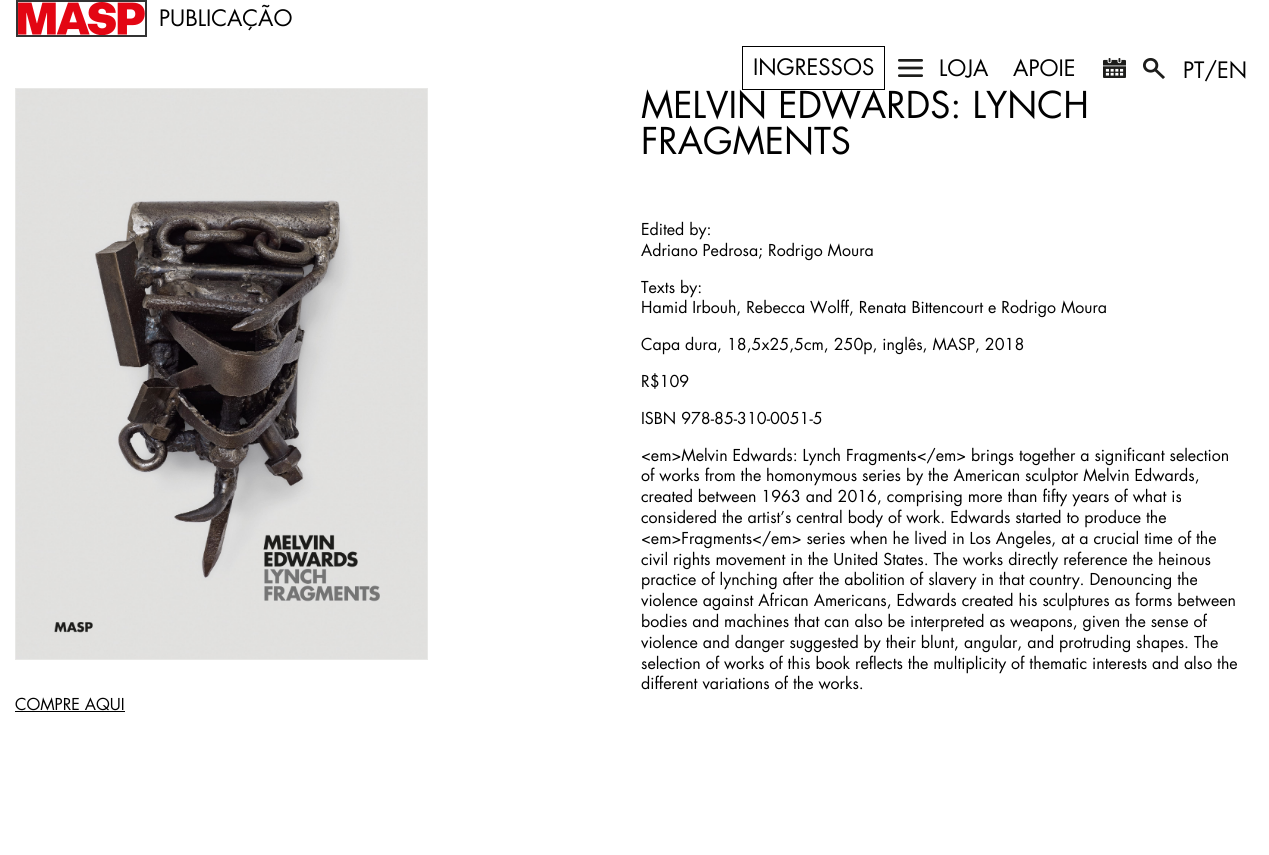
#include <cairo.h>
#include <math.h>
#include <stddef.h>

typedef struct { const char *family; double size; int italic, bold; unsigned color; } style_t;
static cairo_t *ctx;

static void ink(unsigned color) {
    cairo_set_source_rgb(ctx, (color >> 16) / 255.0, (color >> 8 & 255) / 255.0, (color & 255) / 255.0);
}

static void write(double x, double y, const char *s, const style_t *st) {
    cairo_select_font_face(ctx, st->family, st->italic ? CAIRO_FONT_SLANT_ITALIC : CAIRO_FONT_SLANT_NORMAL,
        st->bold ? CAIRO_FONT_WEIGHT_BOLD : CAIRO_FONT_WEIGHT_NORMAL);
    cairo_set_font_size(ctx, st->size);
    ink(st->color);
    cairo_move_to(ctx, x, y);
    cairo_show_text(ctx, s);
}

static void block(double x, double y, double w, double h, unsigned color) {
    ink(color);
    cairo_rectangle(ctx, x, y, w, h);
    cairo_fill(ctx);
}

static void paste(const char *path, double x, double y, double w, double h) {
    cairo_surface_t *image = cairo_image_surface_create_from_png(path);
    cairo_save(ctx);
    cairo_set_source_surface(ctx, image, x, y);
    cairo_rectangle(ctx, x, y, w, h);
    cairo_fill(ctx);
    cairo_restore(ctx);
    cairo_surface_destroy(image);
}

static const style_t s1 = {"Futura", 22, 0, 0, 0x000000};
static const style_t s2 = {"Futura", 36, 0, 0, 0x000000};
static const style_t s3 = {"Futura", 16, 0, 0, 0x000000};

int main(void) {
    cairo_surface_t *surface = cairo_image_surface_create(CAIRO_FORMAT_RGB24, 1269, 855);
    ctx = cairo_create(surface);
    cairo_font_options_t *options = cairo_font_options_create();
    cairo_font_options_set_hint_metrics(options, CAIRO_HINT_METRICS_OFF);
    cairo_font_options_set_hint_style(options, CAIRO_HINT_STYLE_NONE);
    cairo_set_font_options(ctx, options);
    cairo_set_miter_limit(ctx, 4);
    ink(0xffffff);
    cairo_paint(ctx);
    cairo_rectangle(ctx, 17, 1, 129, 35);
    ink(0x333333);
    cairo_stroke(ctx);
    paste("pic1.png", 18, 2, 127, 33);
    write(159, 26, "PUBLICAÇÃO", &s1);
    cairo_rectangle(ctx, 742.5, 46.5, 142, 43);
    cairo_set_line_width(ctx, 1);
    cairo_stroke(ctx);
    write(753, 75, "INGRESSOS", &s1);
    paste("pic2.png", 898, 59, 25, 18);
    write(939, 76, "LOJA", &s1);
    write(1013, 76, "APOIE", &s1);
    paste("pic3.png", 1103, 58, 23, 20);
    paste("pic4.png", 1143, 58, 22, 21);
    write(1183, 78, "PT/EN", &s1);
    write(641, 118, "MELVIN EDWARDS: LYNCH", &s2);
    write(641, 154, "FRAGMENTS", &s2);
    write(641, 235, "Edited by:", &s3);
    write(641, 256, "Adriano Pedrosa; Rodrigo Moura", &s3);
    write(641, 293, "Texts by:", &s3);
    write(641, 313, "Hamid Irbouh, Rebecca Wolff, Renata Bittencourt e Rodrigo Moura", &s3);
    write(641, 350, "Capa dura, 18,5x25,5cm, 250p, inglês, MASP, 2018", &s3);
    write(641, 387, "R$109", &s3);
    write(641, 424, "ISBN 978-85-310-0051-5", &s3);
    write(641, 461, "<em>Melvin Edwards: Lynch Fragments</em> brings together a significant selection", &s3);
    write(641, 481, "of works from the homonymous series by the American sculptor Melvin Edwards,", &s3);
    write(641, 502, "created between 1963 and 2016, comprising more than fifty years of what is", &s3);
    write(641, 523, "considered the artist’s central body of work. Edwards started to produce the", &s3);
    write(641, 544, "<em>Fragments</em> series when he lived in Los Angeles, at a crucial time of the", &s3);
    write(641, 565, "civil rights movement in the United States. The works directly reference the heinous", &s3);
    write(641, 585, "practice of lynching after the abolition of slavery in that country. Denouncing the", &s3);
    write(641, 606, "violence against African Americans, Edwards created his sculptures as forms between", &s3);
    write(641, 627, "bodies and machines that can also be interpreted as weapons, given the sense of", &s3);
    write(641, 648, "violence and danger suggested by their blunt, angular, and protruding shapes. The", &s3);
    write(641, 669, "selection of works of this book reflects the multiplicity of thematic interests and also the", &s3);
    write(641, 689, "different variations of the works.", &s3);
    cairo_rectangle(ctx, 15.5, 88.5, 412, 571);
    ink(0xe8e8e6);
    cairo_stroke(ctx);
    paste("pic5.png", 16, 89, 411, 570);
    write(15, 710, "COMPRE AQUI", &s3);
    block(15, 711, 110, 1, 0x000000);
    cairo_surface_write_to_png(surface, "screenshot.png");
    cairo_font_options_destroy(options);
    cairo_destroy(ctx);
    cairo_surface_destroy(surface);
    return 0;
}
